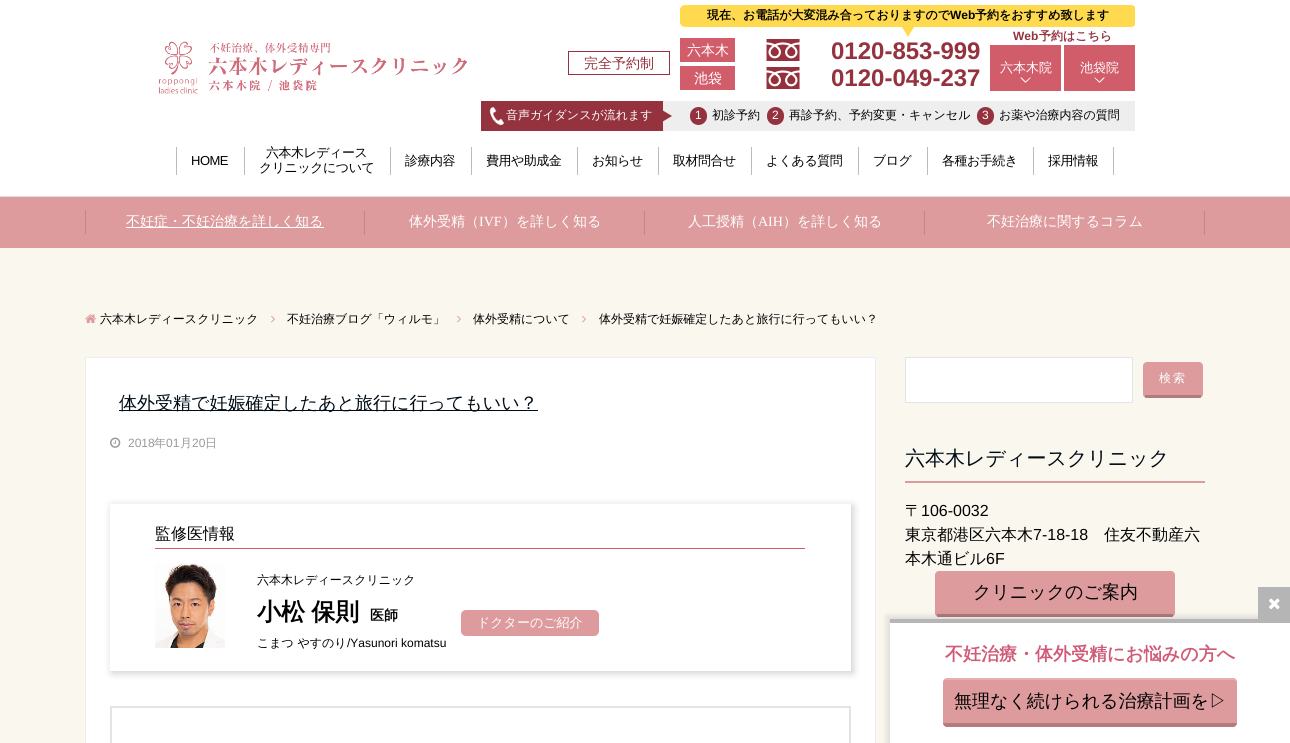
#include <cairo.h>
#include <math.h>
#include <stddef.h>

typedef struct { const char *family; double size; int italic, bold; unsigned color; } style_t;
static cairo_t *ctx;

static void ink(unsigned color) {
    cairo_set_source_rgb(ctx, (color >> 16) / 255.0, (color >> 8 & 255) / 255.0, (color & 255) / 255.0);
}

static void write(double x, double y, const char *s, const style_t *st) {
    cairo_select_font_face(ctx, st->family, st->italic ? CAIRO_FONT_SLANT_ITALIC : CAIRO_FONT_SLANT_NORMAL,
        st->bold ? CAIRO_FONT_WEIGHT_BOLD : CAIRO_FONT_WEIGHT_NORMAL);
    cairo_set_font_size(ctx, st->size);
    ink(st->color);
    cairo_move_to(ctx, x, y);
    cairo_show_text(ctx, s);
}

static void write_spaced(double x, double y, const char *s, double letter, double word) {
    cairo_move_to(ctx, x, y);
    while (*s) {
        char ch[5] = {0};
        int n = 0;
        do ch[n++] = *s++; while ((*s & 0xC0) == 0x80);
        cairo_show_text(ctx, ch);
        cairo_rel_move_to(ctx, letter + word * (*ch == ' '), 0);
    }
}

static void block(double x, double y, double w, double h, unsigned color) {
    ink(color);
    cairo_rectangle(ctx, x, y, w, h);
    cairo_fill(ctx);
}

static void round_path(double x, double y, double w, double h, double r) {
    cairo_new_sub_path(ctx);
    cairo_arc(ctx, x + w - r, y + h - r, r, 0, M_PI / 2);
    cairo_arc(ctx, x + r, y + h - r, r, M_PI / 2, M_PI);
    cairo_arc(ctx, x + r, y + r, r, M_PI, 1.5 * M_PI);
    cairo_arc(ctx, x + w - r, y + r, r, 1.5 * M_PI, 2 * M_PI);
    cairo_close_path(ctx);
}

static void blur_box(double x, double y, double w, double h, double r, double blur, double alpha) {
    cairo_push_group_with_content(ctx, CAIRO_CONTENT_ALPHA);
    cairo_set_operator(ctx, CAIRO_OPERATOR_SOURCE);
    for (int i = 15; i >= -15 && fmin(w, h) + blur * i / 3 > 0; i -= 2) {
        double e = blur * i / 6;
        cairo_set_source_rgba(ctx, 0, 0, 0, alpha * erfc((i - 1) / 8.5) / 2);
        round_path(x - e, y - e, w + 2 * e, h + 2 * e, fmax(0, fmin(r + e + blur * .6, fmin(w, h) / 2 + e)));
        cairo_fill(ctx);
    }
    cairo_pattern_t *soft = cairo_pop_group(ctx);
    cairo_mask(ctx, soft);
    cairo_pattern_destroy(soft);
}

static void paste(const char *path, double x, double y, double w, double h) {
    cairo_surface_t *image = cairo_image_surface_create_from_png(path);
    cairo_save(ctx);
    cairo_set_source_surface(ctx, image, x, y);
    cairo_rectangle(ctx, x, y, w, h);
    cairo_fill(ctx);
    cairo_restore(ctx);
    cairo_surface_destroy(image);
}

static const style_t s1 = {"WenQuanYi Zen Hei", 12, 0, 1, 0x000000};
static const style_t s2 = {"Liberation Sans", 12, 0, 1, 0x000000};
static const style_t s3 = {"WenQuanYi Zen Hei Medium", 14, 0, 0, 0xffffff};
static const style_t s4 = {"Liberation Sans", 24, 0, 1, 0x94323e};
static const style_t s5 = {"WenQuanYi Zen Hei Medium", 14, 0, 0, 0x94323e};
static const style_t s6 = {"Liberation Sans", 12, 0, 1, 0x94323e};
static const style_t s7 = {"WenQuanYi Zen Hei", 12, 0, 1, 0x94323e};
static const style_t s8 = {"WenQuanYi Zen Hei Medium", 13, 0, 0, 0xffffff};
static const style_t s9 = {"WenQuanYi Zen Hei Medium", 12, 0, 0, 0xffffff};
static const style_t s10 = {"Liberation Sans", 12, 0, 0, 0xffffff};
static const style_t s11 = {"WenQuanYi Zen Hei Medium", 12, 0, 0, 0x000000};
static const style_t s12 = {"Liberation Serif", 14, 0, 0, 0xffffff};
static const style_t s13 = {"WenQuanYi Zen Hei Medium", 18, 0, 0, 0x000c15};
static const style_t s14 = {"Liberation Sans", 12, 0, 0, 0x999999};
static const style_t s15 = {"WenQuanYi Zen Hei Medium", 12, 0, 0, 0x999999};
static const style_t s16 = {"WenQuanYi Zen Hei Medium", 16, 0, 0, 0x000000};
static const style_t s17 = {"WenQuanYi Zen Hei", 14, 0, 1, 0x000000};
static const style_t s18 = {"Liberation Sans", 12, 0, 0, 0x000000};
static const style_t s19 = {"WenQuanYi Zen Hei Medium", 20, 0, 0, 0x000c15};
static const style_t s20 = {"Liberation Sans", 16, 0, 0, 0x000000};
static const style_t s21 = {"WenQuanYi Zen Hei Medium", 18, 0, 0, 0x000000};
static const style_t s22 = {"WenQuanYi Zen Hei", 18, 0, 1, 0xd05b78};

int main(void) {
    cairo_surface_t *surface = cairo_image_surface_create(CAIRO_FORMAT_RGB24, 1290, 743);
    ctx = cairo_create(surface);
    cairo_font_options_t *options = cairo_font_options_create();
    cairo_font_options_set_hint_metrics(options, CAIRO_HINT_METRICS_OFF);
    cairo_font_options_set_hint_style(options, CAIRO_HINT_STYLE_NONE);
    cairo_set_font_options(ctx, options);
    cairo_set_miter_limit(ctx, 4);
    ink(0xfaf7ef);
    cairo_paint(ctx);
    block(0, 0, 1290, 196, 0xffffff);
    paste("pic1.png", 158, 41, 310, 53);
    cairo_save(ctx);
    cairo_rectangle(ctx, 155, 0, 980, 136);
    cairo_clip(ctx);
    ink(0xffda4e);
    round_path(680, 5, 456, 22, 5);
    cairo_fill(ctx);
    cairo_restore(ctx);
    write(707, 19, "現在、お電話が大変混み合っておりますので", &s1);
    write(950, 19, "Web", &s2);
    write(975, 19, "予約をおすすめ致します", &s1);
    ink(0xffda4e);
    cairo_new_path(ctx);
    cairo_move_to(ctx, 902, 27);
    cairo_line_to(ctx, 914, 27);
    cairo_line_to(ctx, 908, 37);
    cairo_close_path(ctx);
    cairo_fill(ctx);
    block(680, 38, 55, 24, 0xd15c6a);
    write(687, 55, "六本木", &s3);
    paste("pic2.png", 766, 39, 34, 22);
    write(831, 59, "0120-853-999", &s4);
    block(680, 66, 55, 24, 0xd15c6a);
    write(694, 83, "池袋", &s3);
    paste("pic2.png", 766, 67, 34, 22);
    write(831, 86, "0120-049-237", &s4);
    cairo_rectangle(ctx, 568.5, 51.5, 101, 23);
    ink(0x95323e);
    cairo_set_line_width(ctx, 1);
    cairo_stroke(ctx);
    write(584, 68, "完全予約制", &s5);
    write(1013, 40, "Web", &s6);
    write(1039, 40, "予約はこちら", &s7);
    block(990, 45, 71, 46, 0xd15c6a);
    write(1000, 72, "六本木院", &s8);
    cairo_new_path(ctx);
    cairo_move_to(ctx, 1031, 77.5);
    cairo_line_to(ctx, 1025.5, 83);
    cairo_line_to(ctx, 1025.5, 81.5);
    cairo_line_to(ctx, 1030, 77.5);
    cairo_close_path(ctx);
    cairo_fill(ctx);
    cairo_new_path(ctx);
    cairo_move_to(ctx, 1025.5, 83);
    cairo_line_to(ctx, 1020, 77.5);
    cairo_line_to(ctx, 1021.5, 77.5);
    cairo_line_to(ctx, 1025.5, 81.5);
    cairo_close_path(ctx);
    cairo_fill(ctx);
    block(1064, 45, 71, 46, 0xd15c6a);
    write(1080, 72, "池袋院", &s8);
    cairo_new_path(ctx);
    cairo_move_to(ctx, 1105, 77.5);
    cairo_line_to(ctx, 1099.5, 83);
    cairo_line_to(ctx, 1099.5, 81.5);
    cairo_line_to(ctx, 1103.5, 77.5);
    cairo_close_path(ctx);
    cairo_fill(ctx);
    cairo_new_path(ctx);
    cairo_move_to(ctx, 1099.5, 83);
    cairo_line_to(ctx, 1094, 77.5);
    cairo_line_to(ctx, 1095, 77.5);
    cairo_line_to(ctx, 1099.5, 81.5);
    cairo_close_path(ctx);
    cairo_fill(ctx);
    block(663, 101, 472, 30, 0xeeeeee);
    block(481, 101, 182, 30, 0x94323e);
    paste("pic3.png", 489, 107, 15, 18);
    write(506, 119, "音声ガイダンスが流れます", &s9);
    ink(0x94323e);
    cairo_new_path(ctx);
    cairo_move_to(ctx, 662, 122);
    cairo_line_to(ctx, 662, 110);
    cairo_line_to(ctx, 672, 116);
    cairo_close_path(ctx);
    cairo_fill(ctx);
    round_path(690, 107, 17, 18, 8.5);
    cairo_fill(ctx);
    write(695, 119, "1", &s10);
    write(712, 119, "初診予約", &s11);
    ink(0x94323e);
    round_path(767, 107, 17, 18, 8.5);
    cairo_fill(ctx);
    write(772, 119, "2", &s10);
    write(789, 119, "再診予約、予約変更・キャンセル", &s11);
    ink(0x94323e);
    round_path(977, 107, 17, 18, 8.5);
    cairo_fill(ctx);
    write(982, 119, "3", &s10);
    write(999, 119, "お薬や治療内容の質問", &s11);
    block(0, 196, 1290, 1, 0xdedede);
    block(176, 147, 1, 28, 0xbcbcbc);
    cairo_select_font_face(ctx, "Liberation Sans", CAIRO_FONT_SLANT_NORMAL, CAIRO_FONT_WEIGHT_NORMAL);
    cairo_set_font_size(ctx, 13);
    ink(0x000000);
    write_spaced(191, 165, "HOME", -0.5, 0);
    block(244, 147, 1, 28, 0xbcbcbc);
    cairo_select_font_face(ctx, "WenQuanYi Zen Hei Medium", CAIRO_FONT_SLANT_NORMAL, CAIRO_FONT_WEIGHT_NORMAL);
    ink(0x000000);
    write_spaced(266, 157, "六本木レディース", -0.5, 0);
    write_spaced(259, 172, "クリニックについて", -0.5, 0);
    block(390, 147, 1, 28, 0xbcbcbc);
    ink(0x000000);
    write_spaced(405, 165, "診療内容", -0.5, 0);
    block(471, 147, 1, 28, 0xbcbcbc);
    ink(0x000000);
    write_spaced(486, 165, "費用や助成金", -0.5, 0);
    block(577, 147, 1, 28, 0xbcbcbc);
    ink(0x000000);
    write_spaced(592, 165, "お知らせ", -0.5, 0);
    block(658, 147, 1, 28, 0xbcbcbc);
    ink(0x000000);
    write_spaced(673, 165, "取材問合せ", -0.5, 0);
    block(751, 147, 1, 28, 0xbcbcbc);
    ink(0x000000);
    write_spaced(766, 165, "よくある質問", -0.5, 0);
    block(858, 147, 1, 28, 0xbcbcbc);
    ink(0x000000);
    write_spaced(873, 165, "ブログ", -0.5, 0);
    block(927, 147, 1, 28, 0xbcbcbc);
    ink(0x000000);
    write_spaced(942, 165, "各種お手続き", -0.5, 0);
    block(1033, 147, 1, 28, 0xbcbcbc);
    ink(0x000000);
    write_spaced(1048, 165, "採用情報", -0.5, 0);
    block(1113, 147, 1, 28, 0xbcbcbc);
    block(0, 197, 1290, 51, 0xdd9b9d);
    block(85, 210, 1, 24, 0xc2897f);
    block(126, 227, 198, 1, 0xffffff);
    write(126, 226, "不妊症・不妊治療を詳しく知る", &s3);
    block(364, 211, 1, 24, 0xc2897f);
    write(409, 226, "体外受精（", &s3);
    write(479, 226, "IVF", &s12);
    write(502, 226, "）を詳しく知る", &s3);
    block(644, 211, 1, 24, 0xc2897f);
    write(688, 226, "人工授精（", &s3);
    write(758, 226, "AIH", &s12);
    write(783, 226, "）を詳しく知る", &s3);
    block(924, 211, 1, 24, 0xc2897f);
    write(987, 226, "不妊治療に関するコラム", &s3);
    block(1204, 211, 1, 24, 0xc2897f);
    paste("pic4.png", 85, 314, 11, 9);
    write(100, 323, "六本木レディースクリニック", &s11);
    paste("pic5.png", 271, 315, 4, 8);
    write(287, 323, "不妊治療ブログ「ウィルモ」", &s11);
    paste("pic5.png", 457, 315, 4, 8);
    write(473, 323, "体外受精について", &s11);
    paste("pic5.png", 582, 315, 4, 8);
    write(599, 323, "体外受精で妊娠確定したあと旅行に行ってもいい？", &s11);
    ink(0xffffff);
    cairo_rectangle(ctx, 85.5, 357.5, 790, 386);
    cairo_fill_preserve(ctx);
    ink(0xebedf0);
    cairo_stroke(ctx);
    block(119, 410, 419, 1, 0x000c15);
    write(119, 409, "体外受精で妊娠確定したあと旅行に行ってもいい？", &s13);
    paste("pic6.png", 110, 437, 11, 11);
    write(128, 447, "2018", &s14);
    write(154, 447, "年", &s15);
    write(166, 447, "01", &s14);
    write(180, 447, "月", &s15);
    write(192, 447, "20", &s14);
    write(205, 447, "日", &s15);
    cairo_save(ctx);
    cairo_set_fill_rule(ctx, CAIRO_FILL_RULE_EVEN_ODD);
    cairo_new_path(ctx);
    cairo_move_to(ctx, 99, 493);
    cairo_line_to(ctx, 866, 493);
    cairo_line_to(ctx, 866, 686);
    cairo_line_to(ctx, 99, 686);
    cairo_close_path(ctx);
    cairo_move_to(ctx, 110, 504);
    cairo_line_to(ctx, 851, 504);
    cairo_line_to(ctx, 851, 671);
    cairo_line_to(ctx, 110, 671);
    cairo_close_path(ctx);
    cairo_clip(ctx);
    ink(0xcccccc);
    blur_box(112, 506, 741, 167, 0, 4, 1);
    cairo_restore(ctx);
    block(155, 548, 650, 1, 0xd15c6b);
    write(155, 539, "監修医情報", &s16);
    paste("pic7.png", 155, 563, 70, 85);
    write(257, 584, "六本木レディースクリニック", &s11);
    cairo_select_font_face(ctx, "WenQuanYi Zen Hei", CAIRO_FONT_SLANT_NORMAL, CAIRO_FONT_WEIGHT_BOLD);
    cairo_set_font_size(ctx, 24);
    write_spaced(257, 620, "小松 保則", 0, -1);
    write(370, 620, "医師", &s17);
    write(257, 647, "こまつ やすのり", &s11);
    write(347, 647, "/Yasunori komatsu", &s18);
    ink(0xdd9b9d);
    round_path(461, 610, 138, 26, 5);
    cairo_fill(ctx);
    write(477, 627, "ドクターのご紹介", &s8);
    cairo_rectangle(ctx, 111, 707, 739, 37);
    ink(0xe2e5e8);
    cairo_set_line_width(ctx, 2);
    cairo_stroke(ctx);
    ink(0xffffff);
    round_path(905.5, 357.5, 227, 45, 0.5);
    cairo_fill_preserve(ctx);
    ink(0xe2e5e8);
    cairo_set_line_width(ctx, 1);
    cairo_stroke(ctx);
    ink(0xdd9b9d);
    round_path(1143, 362, 60, 36, 4);
    cairo_fill(ctx);
    cairo_set_source_rgba(ctx, 0, 0, 0, 0.2);
    cairo_rectangle(ctx, 1145, 395, 56, 3);
    cairo_fill(ctx);
    cairo_set_font_size(ctx, 12);
    ink(0xffffff);
    write_spaced(1159, 382, "検索", 2, 0);
    block(905, 481, 300, 2, 0xdd9b9d);
    write(905, 465, "六本木レディースクリニック", &s19);
    write(905, 516, "〒", &s16);
    write(921, 516, "106-0032", &s20);
    write(905, 540, "東京都港区六本木", &s16);
    write(1033, 540, "7-18-18", &s20);
    write(1104, 540, "住友不動産六", &s16);
    write(905, 564, "本木通ビル", &s16);
    write(986, 564, "6F", &s20);
    ink(0xdd9b9d);
    round_path(935, 571, 240, 46, 4);
    cairo_fill(ctx);
    cairo_set_source_rgba(ctx, 0, 0, 0, 0.2);
    cairo_rectangle(ctx, 937, 614, 236, 3);
    cairo_fill(ctx);
    write(973, 598, "クリニックのご案内", &s21);
    ink(0x000000);
    blur_box(887, 616, 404, 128, 0, 3, 0.12);
    block(890, 623, 400, 120, 0xffffff);
    block(1258, 587, 32, 32, 0xb5b5b5);
    paste("pic8.png", 1269, 598, 11, 12);
    block(890, 619, 400, 4, 0xb5b5b5);
    write(945, 660, "不妊治療・体外受精にお悩みの方へ", &s22);
    ink(0xdd9b9d);
    round_path(943, 678, 294, 49, 4);
    cairo_fill(ctx);
    cairo_set_source_rgba(ctx, 1, 1, 1, 0.2);
    cairo_new_path(ctx);
    cairo_move_to(ctx, 947, 678);
    cairo_curve_to(ctx, 945, 678, 943, 680, 943, 682);
    cairo_curve_to(ctx, 943, 681, 945, 680, 947, 680);
    cairo_line_to(ctx, 1233, 680);
    cairo_curve_to(ctx, 1235, 680, 1237, 681, 1237, 682);
    cairo_curve_to(ctx, 1237, 680, 1235, 678, 1233, 678);
    cairo_close_path(ctx);
    cairo_fill(ctx);
    cairo_set_source_rgba(ctx, 0, 0, 0, 0.2);
    cairo_new_path(ctx);
    cairo_move_to(ctx, 1233, 727);
    cairo_curve_to(ctx, 1235, 727, 1237, 725, 1237, 723);
    cairo_line_to(ctx, 943, 723);
    cairo_curve_to(ctx, 943, 725, 945, 727, 947, 727);
    cairo_close_path(ctx);
    cairo_fill(ctx);
    write(954, 707, "無理なく続けられる治療計画を▷", &s21);
    cairo_surface_write_to_png(surface, "screenshot.png");
    cairo_font_options_destroy(options);
    cairo_destroy(ctx);
    cairo_surface_destroy(surface);
    return 0;
}
